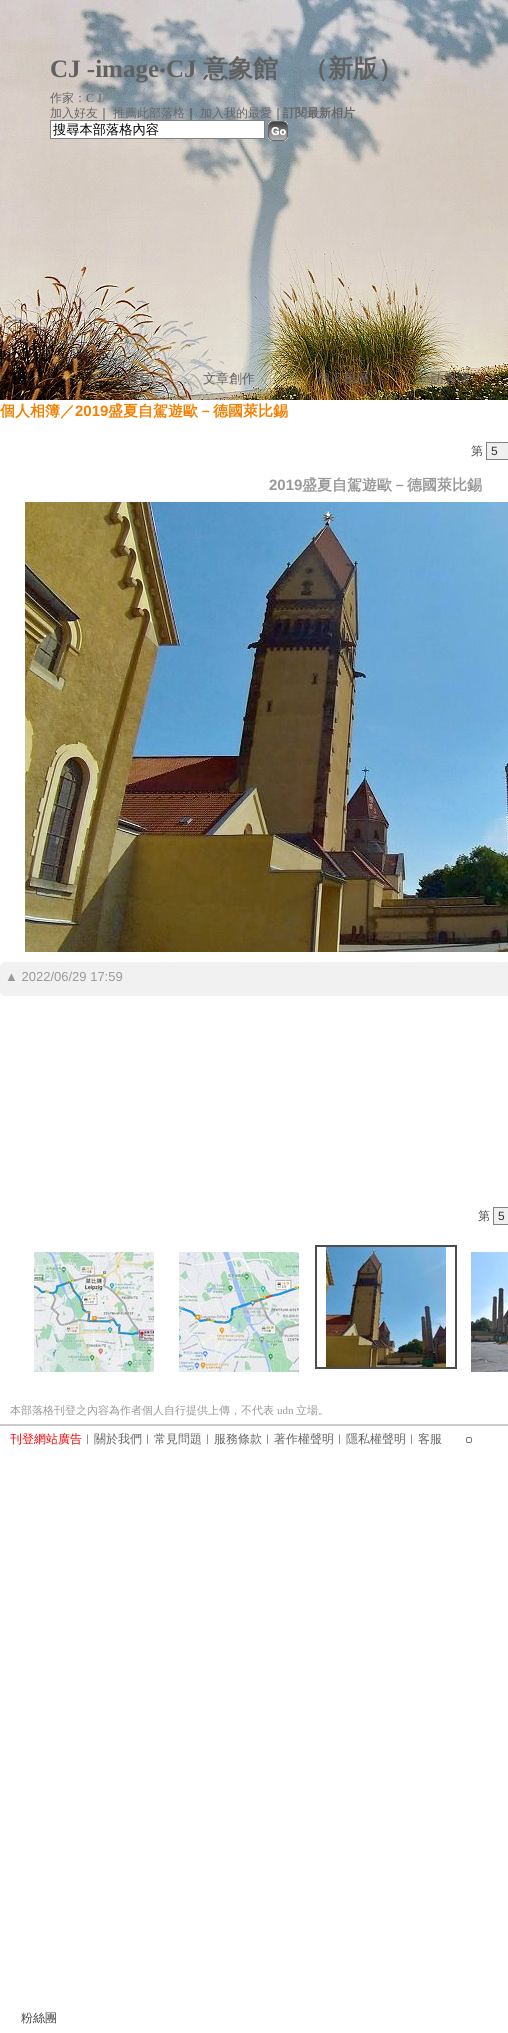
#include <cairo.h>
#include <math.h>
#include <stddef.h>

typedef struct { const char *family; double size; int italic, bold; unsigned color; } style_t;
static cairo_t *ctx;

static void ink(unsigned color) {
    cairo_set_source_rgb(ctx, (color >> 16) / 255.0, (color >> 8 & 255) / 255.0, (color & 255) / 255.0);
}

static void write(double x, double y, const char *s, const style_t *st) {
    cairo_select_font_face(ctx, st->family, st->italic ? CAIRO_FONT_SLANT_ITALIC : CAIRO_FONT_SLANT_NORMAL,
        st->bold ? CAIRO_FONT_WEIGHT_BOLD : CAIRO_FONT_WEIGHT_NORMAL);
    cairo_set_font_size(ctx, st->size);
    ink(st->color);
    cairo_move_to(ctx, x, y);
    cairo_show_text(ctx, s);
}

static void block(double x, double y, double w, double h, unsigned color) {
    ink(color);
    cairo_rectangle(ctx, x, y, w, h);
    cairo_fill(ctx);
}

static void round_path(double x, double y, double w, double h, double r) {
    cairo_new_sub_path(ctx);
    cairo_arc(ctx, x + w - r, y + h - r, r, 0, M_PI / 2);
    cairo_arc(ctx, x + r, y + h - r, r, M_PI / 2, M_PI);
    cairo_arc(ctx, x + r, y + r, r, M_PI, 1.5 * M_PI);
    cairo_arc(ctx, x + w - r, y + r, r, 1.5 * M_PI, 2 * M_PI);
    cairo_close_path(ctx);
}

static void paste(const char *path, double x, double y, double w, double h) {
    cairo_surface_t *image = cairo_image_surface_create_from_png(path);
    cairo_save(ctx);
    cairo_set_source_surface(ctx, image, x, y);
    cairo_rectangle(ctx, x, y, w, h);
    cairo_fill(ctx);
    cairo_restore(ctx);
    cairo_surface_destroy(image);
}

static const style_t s1 = {"Liberation Serif", 25, 0, 1, 0x606060};
static const style_t s2 = {"Noto Sans", 25, 0, 1, 0x606060};
static const style_t s3 = {"WenQuanYi Zen Hei", 25, 0, 1, 0x606060};
static const style_t s4 = {"WenQuanYi Zen Hei Medium", 12, 0, 0, 0x666666};
static const style_t s5 = {"Liberation Serif", 12, 0, 0, 0x666666};
static const style_t s6 = {"WenQuanYi Zen Hei Medium", 12, 0, 0, 0x333333};
static const style_t s7 = {"WenQuanYi Zen Hei", 12, 0, 1, 0x666666};
static const style_t s8 = {"WenQuanYi Zen Hei Medium", 13.25, 0, 0, 0x000000};
static const style_t s9 = {"WenQuanYi Zen Hei Medium", 13, 0, 0, 0x606060};
static const style_t s10 = {"WenQuanYi Zen Hei", 15, 0, 1, 0xf47e00};
static const style_t s11 = {"Liberation Sans", 15, 0, 1, 0xf47e00};
static const style_t s12 = {"WenQuanYi Zen Hei Medium", 12, 0, 0, 0x4d4d4d};
static const style_t s13 = {"Liberation Sans", 12, 0, 0, 0x333333};
static const style_t s14 = {"Liberation Sans", 15, 0, 1, 0x999999};
static const style_t s15 = {"WenQuanYi Zen Hei", 15, 0, 1, 0x999999};
static const style_t s16 = {"Liberation Sans", 13, 0, 0, 0x999999};
static const style_t s17 = {"WenQuanYi Zen Hei Medium", 11, 0, 0, 0x999999};
static const style_t s18 = {"Liberation Serif", 11, 0, 0, 0x999999};
static const style_t s19 = {"WenQuanYi Zen Hei Medium", 12, 0, 0, 0xff0000};
static const style_t s20 = {"WenQuanYi Zen Hei Medium", 12, 0, 0, 0x444444};

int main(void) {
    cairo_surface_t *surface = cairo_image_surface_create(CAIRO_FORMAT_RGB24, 508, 2033);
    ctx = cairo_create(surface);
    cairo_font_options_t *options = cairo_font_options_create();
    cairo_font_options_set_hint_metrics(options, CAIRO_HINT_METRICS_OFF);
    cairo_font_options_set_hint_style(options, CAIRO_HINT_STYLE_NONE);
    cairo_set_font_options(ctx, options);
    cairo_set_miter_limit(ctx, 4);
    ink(0xffffff);
    cairo_paint(ctx);
    paste("pic1.png", 0, 0, 508, 400);
    write(50, 77, "CJ -image", &s1);
    write(159, 77, "‧", &s2);
    write(166, 77, "CJ", &s1);
    write(203, 77, "意象館", &s3);
    write(303, 77, "（新版）", &s3);
    write(50, 102, "作家：", &s4);
    write(86, 102, "C J", &s5);
    write(50, 117, "加入好友", &s4);
    write(98, 117, "｜", &s6);
    write(113, 117, "推薦此部落格", &s4);
    write(185, 117, "｜", &s6);
    write(200, 117, "加入我的最愛", &s4);
    write(272, 117, "｜", &s6);
    write(283, 117, "訂閱最新相片", &s7);
    ink(0xffffff);
    cairo_rectangle(ctx, 50.5, 120.5, 214, 18);
    cairo_fill_preserve(ctx);
    ink(0x808080);
    cairo_set_line_width(ctx, 1);
    cairo_stroke(ctx);
    write(53, 134, "搜尋本部落格內容", &s8);
    paste("pic2.png", 268, 121, 20, 20);
    write(125, 383, "首頁", &s9);
    write(203, 383, "文章創作", &s9);
    write(317, 383, "個人相簿", &s9);
    write(431, 383, "訪客簿", &s9);
    write(0, 416, "個人相簿／", &s10);
    write(75, 416, "2019", &s11);
    write(108, 416, "盛夏自駕遊歐－德國萊比錫", &s10);
    write(471, 455, "第", &s12);
    ink(0xefefef);
    cairo_rectangle(ctx, 486.5, 442.5, 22, 17);
    cairo_fill_preserve(ctx);
    ink(0x808080);
    cairo_stroke(ctx);
    write(491, 455, "5", &s13);
    write(269, 490, "2019", &s14);
    write(302, 490, "盛夏自駕遊歐－德國萊比錫", &s15);
    paste("pic3.png", 25, 502, 483, 450);
    paste("pic4.png", 0, 962, 5, 5);
    block(5, 962, 503, 5, 0xf1f1f1);
    block(0, 967, 508, 24, 0xf1f1f1);
    write(5, 981, "▲ 2022/06/29 17:59", &s16);
    paste("pic5.png", 0, 991, 5, 5);
    block(5, 991, 503, 5, 0xf1f1f1);
    write(478, 1220, "第", &s12);
    ink(0xefefef);
    cairo_rectangle(ctx, 493.5, 1207.5, 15, 17);
    cairo_fill_preserve(ctx);
    ink(0x808080);
    cairo_stroke(ctx);
    write(498, 1220, "5", &s13);
    paste("pic6.png", 34, 1252, 120, 120);
    paste("pic7.png", 179, 1252, 120, 120);
    cairo_rectangle(ctx, 316, 1246, 140, 122);
    ink(0x4d4d4d);
    cairo_set_line_width(ctx, 2);
    cairo_stroke(ctx);
    paste("pic8.png", 326, 1247, 120, 120);
    paste("pic9.png", 471, 1252, 37, 120);
    block(0, 1424, 508, 2, 0xcccccc);
    write(10, 1414, "本部落格刊登之內容為作者個人自行提供上傳，不代表", &s17);
    write(277, 1414, "udn", &s18);
    write(296, 1414, "立場。", &s17);
    write(10, 1443, "刊登網站廣告", &s19);
    write(82, 1443, "︱", &s6);
    write(94, 1443, "關於我們", &s4);
    write(142, 1443, "︱", &s6);
    write(154, 1443, "常見問題", &s4);
    write(202, 1443, "︱", &s6);
    write(214, 1443, "服務條款", &s4);
    write(262, 1443, "︱", &s6);
    write(274, 1443, "著作權聲明", &s4);
    write(334, 1443, "︱", &s6);
    write(346, 1443, "隱私權聲明", &s4);
    write(406, 1443, "︱", &s6);
    write(418, 1443, "客服", &s4);
    round_path(466.5, 1437.5, 5, 5, 1.5);
    ink(0x767676);
    cairo_set_line_width(ctx, 1);
    cairo_stroke(ctx);
    write(21, 2022, "粉絲團", &s20);
    cairo_surface_write_to_png(surface, "screenshot.png");
    cairo_font_options_destroy(options);
    cairo_destroy(ctx);
    cairo_surface_destroy(surface);
    return 0;
}
